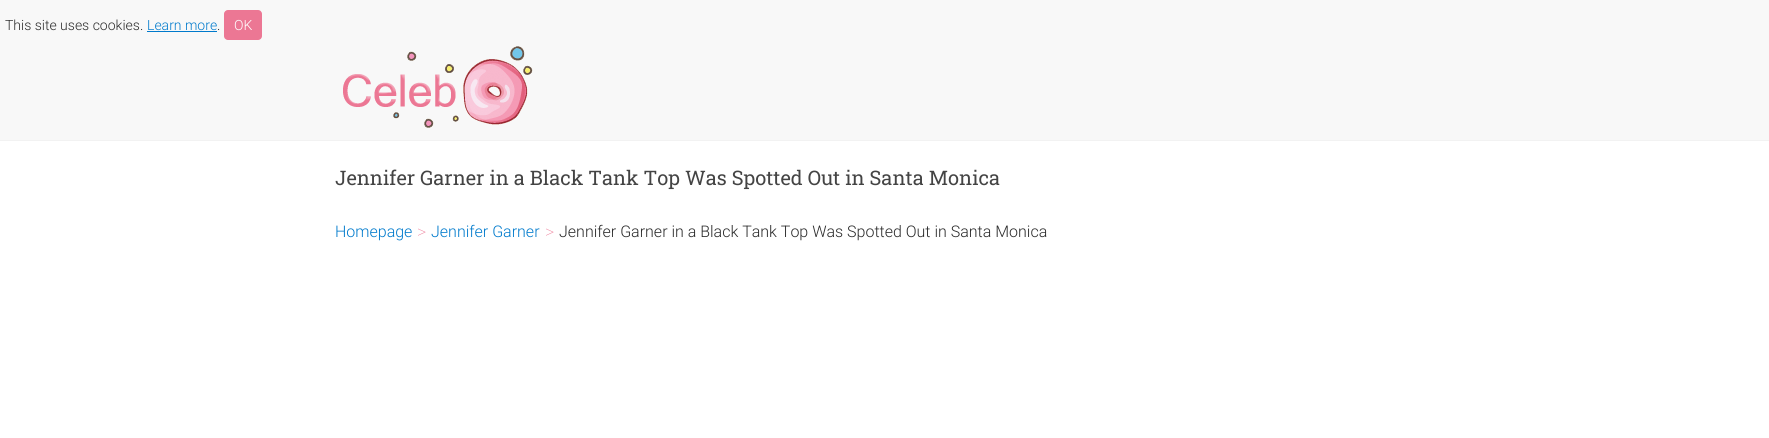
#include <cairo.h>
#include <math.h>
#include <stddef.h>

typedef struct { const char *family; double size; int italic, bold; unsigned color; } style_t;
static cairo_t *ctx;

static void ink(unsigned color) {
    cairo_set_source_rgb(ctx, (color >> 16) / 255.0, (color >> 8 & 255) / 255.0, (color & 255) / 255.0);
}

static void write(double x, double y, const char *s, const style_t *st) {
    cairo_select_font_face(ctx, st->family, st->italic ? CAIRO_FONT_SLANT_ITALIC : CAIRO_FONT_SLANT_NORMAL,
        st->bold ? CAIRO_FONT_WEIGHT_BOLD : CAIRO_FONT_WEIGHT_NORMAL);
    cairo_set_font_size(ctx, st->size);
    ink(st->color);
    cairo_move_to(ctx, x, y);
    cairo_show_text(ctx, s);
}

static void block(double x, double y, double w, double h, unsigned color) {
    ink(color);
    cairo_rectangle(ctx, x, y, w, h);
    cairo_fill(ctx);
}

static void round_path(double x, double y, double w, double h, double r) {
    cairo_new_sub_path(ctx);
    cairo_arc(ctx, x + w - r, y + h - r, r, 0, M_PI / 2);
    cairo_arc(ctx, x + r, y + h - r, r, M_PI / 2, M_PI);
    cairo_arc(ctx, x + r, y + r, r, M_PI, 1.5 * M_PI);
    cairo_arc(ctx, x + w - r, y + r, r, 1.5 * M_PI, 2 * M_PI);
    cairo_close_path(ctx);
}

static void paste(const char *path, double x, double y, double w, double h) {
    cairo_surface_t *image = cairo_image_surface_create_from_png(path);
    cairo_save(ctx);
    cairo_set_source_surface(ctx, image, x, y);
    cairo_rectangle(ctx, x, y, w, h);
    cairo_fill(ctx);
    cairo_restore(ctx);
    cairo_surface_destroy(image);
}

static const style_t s1 = {"Roboto Light", 14, 0, 0, 0x2b2b2b};
static const style_t s2 = {"Roboto Light", 14, 0, 0, 0x007acc};
static const style_t s3 = {"Roboto Light", 14, 0, 0, 0xffffff};
static const style_t s4 = {"Roboto Slab", 20, 0, 0, 0x444444};
static const style_t s5 = {"Roboto Light", 16, 0, 0, 0x007acc};
static const style_t s6 = {"Roboto Thin", 18, 0, 0, 0xec7794};
static const style_t s7 = {"Roboto Light", 16, 0, 0, 0x2b2b2b};

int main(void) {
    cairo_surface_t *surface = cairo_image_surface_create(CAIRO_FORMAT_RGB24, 1769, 438);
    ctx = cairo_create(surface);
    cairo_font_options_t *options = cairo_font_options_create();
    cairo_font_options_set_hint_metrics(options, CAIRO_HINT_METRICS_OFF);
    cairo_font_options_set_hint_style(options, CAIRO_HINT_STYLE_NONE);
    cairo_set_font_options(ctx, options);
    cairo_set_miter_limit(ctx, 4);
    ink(0xffffff);
    cairo_paint(ctx);
    block(0, 0, 1769, 140, 0xf8f8f8);
    block(0, 140, 1769, 1, 0xf2f2f2);
    write(5, 30, "This site uses cookies.", &s1);
    write(147, 30, "Learn more", &s2);
    block(147, 31, 70, 1, 0x007acc);
    write(217, 30, ".", &s1);
    ink(0xec7794);
    round_path(224, 10, 38, 30, 4);
    cairo_fill(ctx);
    write(234, 30, "OK", &s3);
    paste("pic1.png", 343, 46, 190, 82);
    write(335, 185, "Jennifer Garner in a Black Tank Top Was Spotted Out in Santa Monica", &s4);
    write(335, 237, "Homepage", &s5);
    write(417, 238, ">", &s6);
    write(431, 237, "Jennifer Garner", &s5);
    write(545, 238, ">", &s6);
    write(559, 237, "Jennifer Garner in a Black Tank Top Was Spotted Out in Santa Monica", &s7);
    cairo_surface_write_to_png(surface, "screenshot.png");
    cairo_font_options_destroy(options);
    cairo_destroy(ctx);
    cairo_surface_destroy(surface);
    return 0;
}
